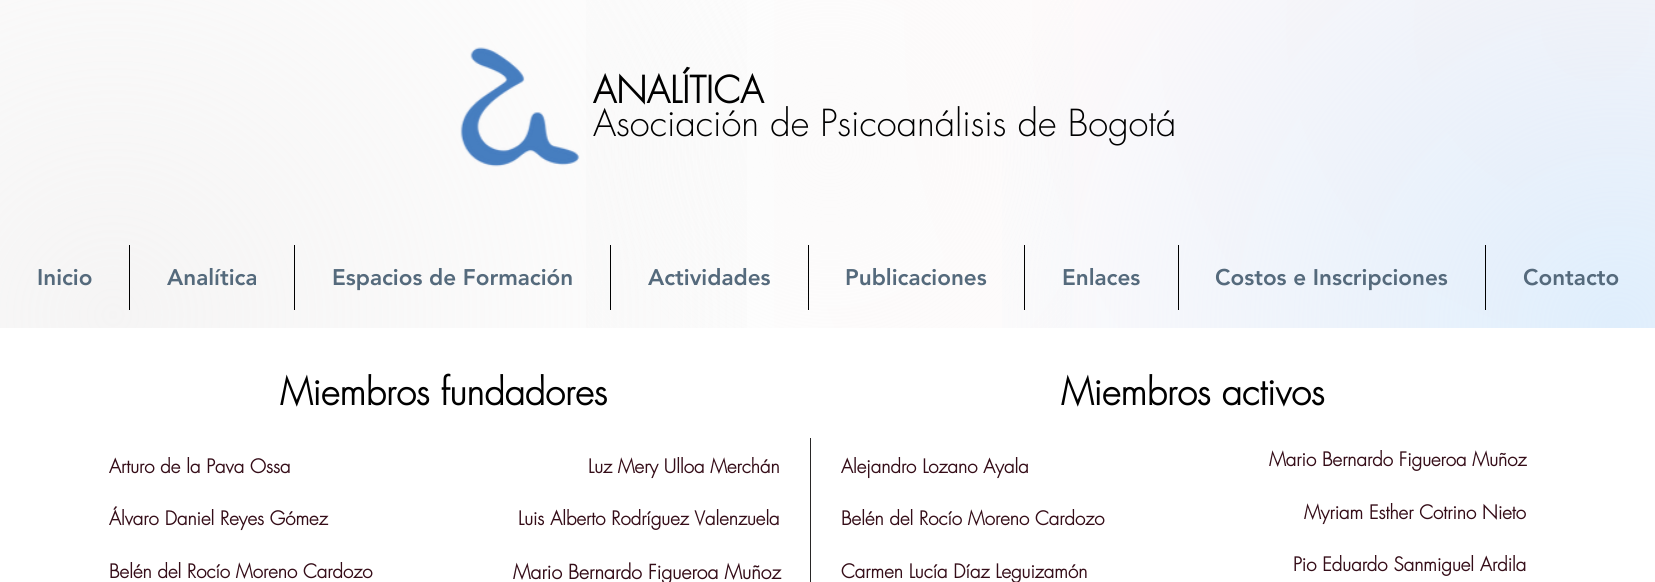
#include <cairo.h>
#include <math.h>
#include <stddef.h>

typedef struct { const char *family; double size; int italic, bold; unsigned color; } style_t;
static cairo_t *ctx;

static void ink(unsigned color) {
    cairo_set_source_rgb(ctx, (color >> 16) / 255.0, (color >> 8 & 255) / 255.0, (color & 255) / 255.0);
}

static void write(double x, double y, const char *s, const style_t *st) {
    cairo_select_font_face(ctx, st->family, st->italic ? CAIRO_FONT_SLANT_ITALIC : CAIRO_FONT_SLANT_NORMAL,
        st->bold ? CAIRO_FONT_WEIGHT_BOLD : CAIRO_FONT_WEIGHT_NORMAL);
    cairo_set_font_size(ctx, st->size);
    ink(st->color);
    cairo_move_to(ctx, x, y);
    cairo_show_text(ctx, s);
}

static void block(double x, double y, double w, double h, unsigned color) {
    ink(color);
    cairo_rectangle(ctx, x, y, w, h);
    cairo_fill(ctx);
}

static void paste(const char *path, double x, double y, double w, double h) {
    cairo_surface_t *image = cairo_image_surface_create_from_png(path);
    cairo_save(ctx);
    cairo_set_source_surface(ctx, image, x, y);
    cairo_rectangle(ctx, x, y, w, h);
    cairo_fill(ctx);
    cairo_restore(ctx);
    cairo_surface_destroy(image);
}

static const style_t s1 = {"futura", 36.25, 0, 1, 0x000000};
static const style_t s2 = {"futura Light", 36.25, 0, 0, 0x000000};
static const style_t s3 = {"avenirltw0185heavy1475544 Black", 22.5, 0, 0, 0x556a7c};
static const style_t s4 = {"futura", 18.75, 0, 1, 0x350d18};
static const style_t s5 = {"futura", 19.5, 0, 1, 0x350d18};

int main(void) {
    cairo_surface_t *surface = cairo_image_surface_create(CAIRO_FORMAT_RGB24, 1655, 582);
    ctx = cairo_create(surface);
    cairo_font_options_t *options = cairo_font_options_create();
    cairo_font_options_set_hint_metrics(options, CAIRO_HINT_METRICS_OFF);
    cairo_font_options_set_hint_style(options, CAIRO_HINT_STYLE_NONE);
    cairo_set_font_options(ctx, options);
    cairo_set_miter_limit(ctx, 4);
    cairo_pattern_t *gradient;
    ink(0xffffff);
    cairo_paint(ctx);
    gradient = cairo_pattern_create_radial(1595, 27, 0, 1595, 27, 1623);
    cairo_pattern_add_color_stop_rgba(gradient, 0, 1, 0.965, 0.965, 1);
    cairo_pattern_add_color_stop_rgba(gradient, 0.7, 1, 1, 1, 1);
    cairo_set_source(ctx, gradient);
    cairo_pattern_destroy(gradient);
    cairo_rectangle(ctx, 774, 0, 881, 328);
    cairo_fill(ctx);
    gradient = cairo_pattern_create_radial(830, 150, 0, 830, 150, 849);
    cairo_pattern_add_color_stop_rgba(gradient, 0, 0.98, 0.98, 0.98, 0.68);
    cairo_pattern_add_color_stop_rgba(gradient, 0.7, 0.98, 0.98, 0.98, 0);
    cairo_set_source(ctx, gradient);
    cairo_pattern_destroy(gradient);
    cairo_rectangle(ctx, 586, 0, 488, 328);
    cairo_fill(ctx);
    gradient = cairo_pattern_create_radial(113, 315, 0, 113, 315, 1574);
    cairo_pattern_add_color_stop_rgba(gradient, 0, 0.91, 0.902, 0.902, 0.42);
    cairo_pattern_add_color_stop_rgba(gradient, 0.5, 0.91, 0.902, 0.902, 0);
    cairo_set_source(ctx, gradient);
    cairo_pattern_destroy(gradient);
    cairo_rectangle(ctx, 0, 0, 747, 328);
    cairo_fill(ctx);
    gradient = cairo_pattern_create_radial(1618, 327, 0, 1618, 327, 1651);
    cairo_pattern_add_color_stop_rgba(gradient, 0, 0.788, 0.906, 1, 0.59);
    cairo_pattern_add_color_stop_rgba(gradient, 0.4, 0.788, 0.906, 1, 0);
    cairo_set_source(ctx, gradient);
    cairo_pattern_destroy(gradient);
    cairo_rectangle(ctx, 1002, 0, 653, 328);
    cairo_fill(ctx);
    paste("pic1.png", 460, 47, 120, 120);
    write(593, 103, "ANALÍTICA", &s1);
    write(593, 136, "Asociación de Psicoanálisis de Bogotá", &s2);
    write(37, 285, "Inicio", &s3);
    block(129, 245, 1, 65, 0x000000);
    write(167, 285, "Analítica", &s3);
    block(294, 245, 1, 65, 0x000000);
    write(332, 285, "Espacios de Formación", &s3);
    block(610, 245, 1, 65, 0x000000);
    write(648, 285, "Actividades", &s3);
    block(808, 245, 1, 65, 0x000000);
    write(845, 285, "Publicaciones", &s3);
    block(1024, 245, 1, 65, 0x000000);
    write(1062, 285, "Enlaces", &s3);
    block(1178, 245, 1, 65, 0x000000);
    write(1215, 285, "Costos e Inscripciones", &s3);
    block(1485, 245, 1, 65, 0x000000);
    write(1523, 285, "Contacto", &s3);
    write(280, 405, "Miembros fundadores", &s1);
    write(109, 473, "Arturo de la Pava Ossa", &s4);
    write(109, 525, "Álvaro Daniel Reyes Gómez", &s4);
    write(109, 578, "Belén del Rocío Moreno Cardozo", &s4);
    write(588, 473, "Luz Mery Ulloa Merchán", &s4);
    write(518, 525, "Luis Alberto Rodríguez Valenzuela", &s4);
    write(513, 579, "Mario Bernardo Figueroa Muñoz", &s5);
    block(810, 438, 1, 144, 0x282626);
    write(1061, 405, "Miembros activos", &s1);
    write(841, 473, "Alejandro Lozano Ayala", &s4);
    write(841, 525, "Belén del Rocío Moreno Cardozo", &s4);
    write(841, 578, "Carmen Lucía Díaz Leguizamón", &s4);
    write(1269, 466, "Mario Bernardo Figueroa Muñoz", &s4);
    write(1304, 519, "Myriam Esther Cotrino Nieto", &s4);
    write(1293, 571, "Pio Eduardo Sanmiguel Ardila", &s4);
    cairo_surface_write_to_png(surface, "screenshot.png");
    cairo_font_options_destroy(options);
    cairo_destroy(ctx);
    cairo_surface_destroy(surface);
    return 0;
}
